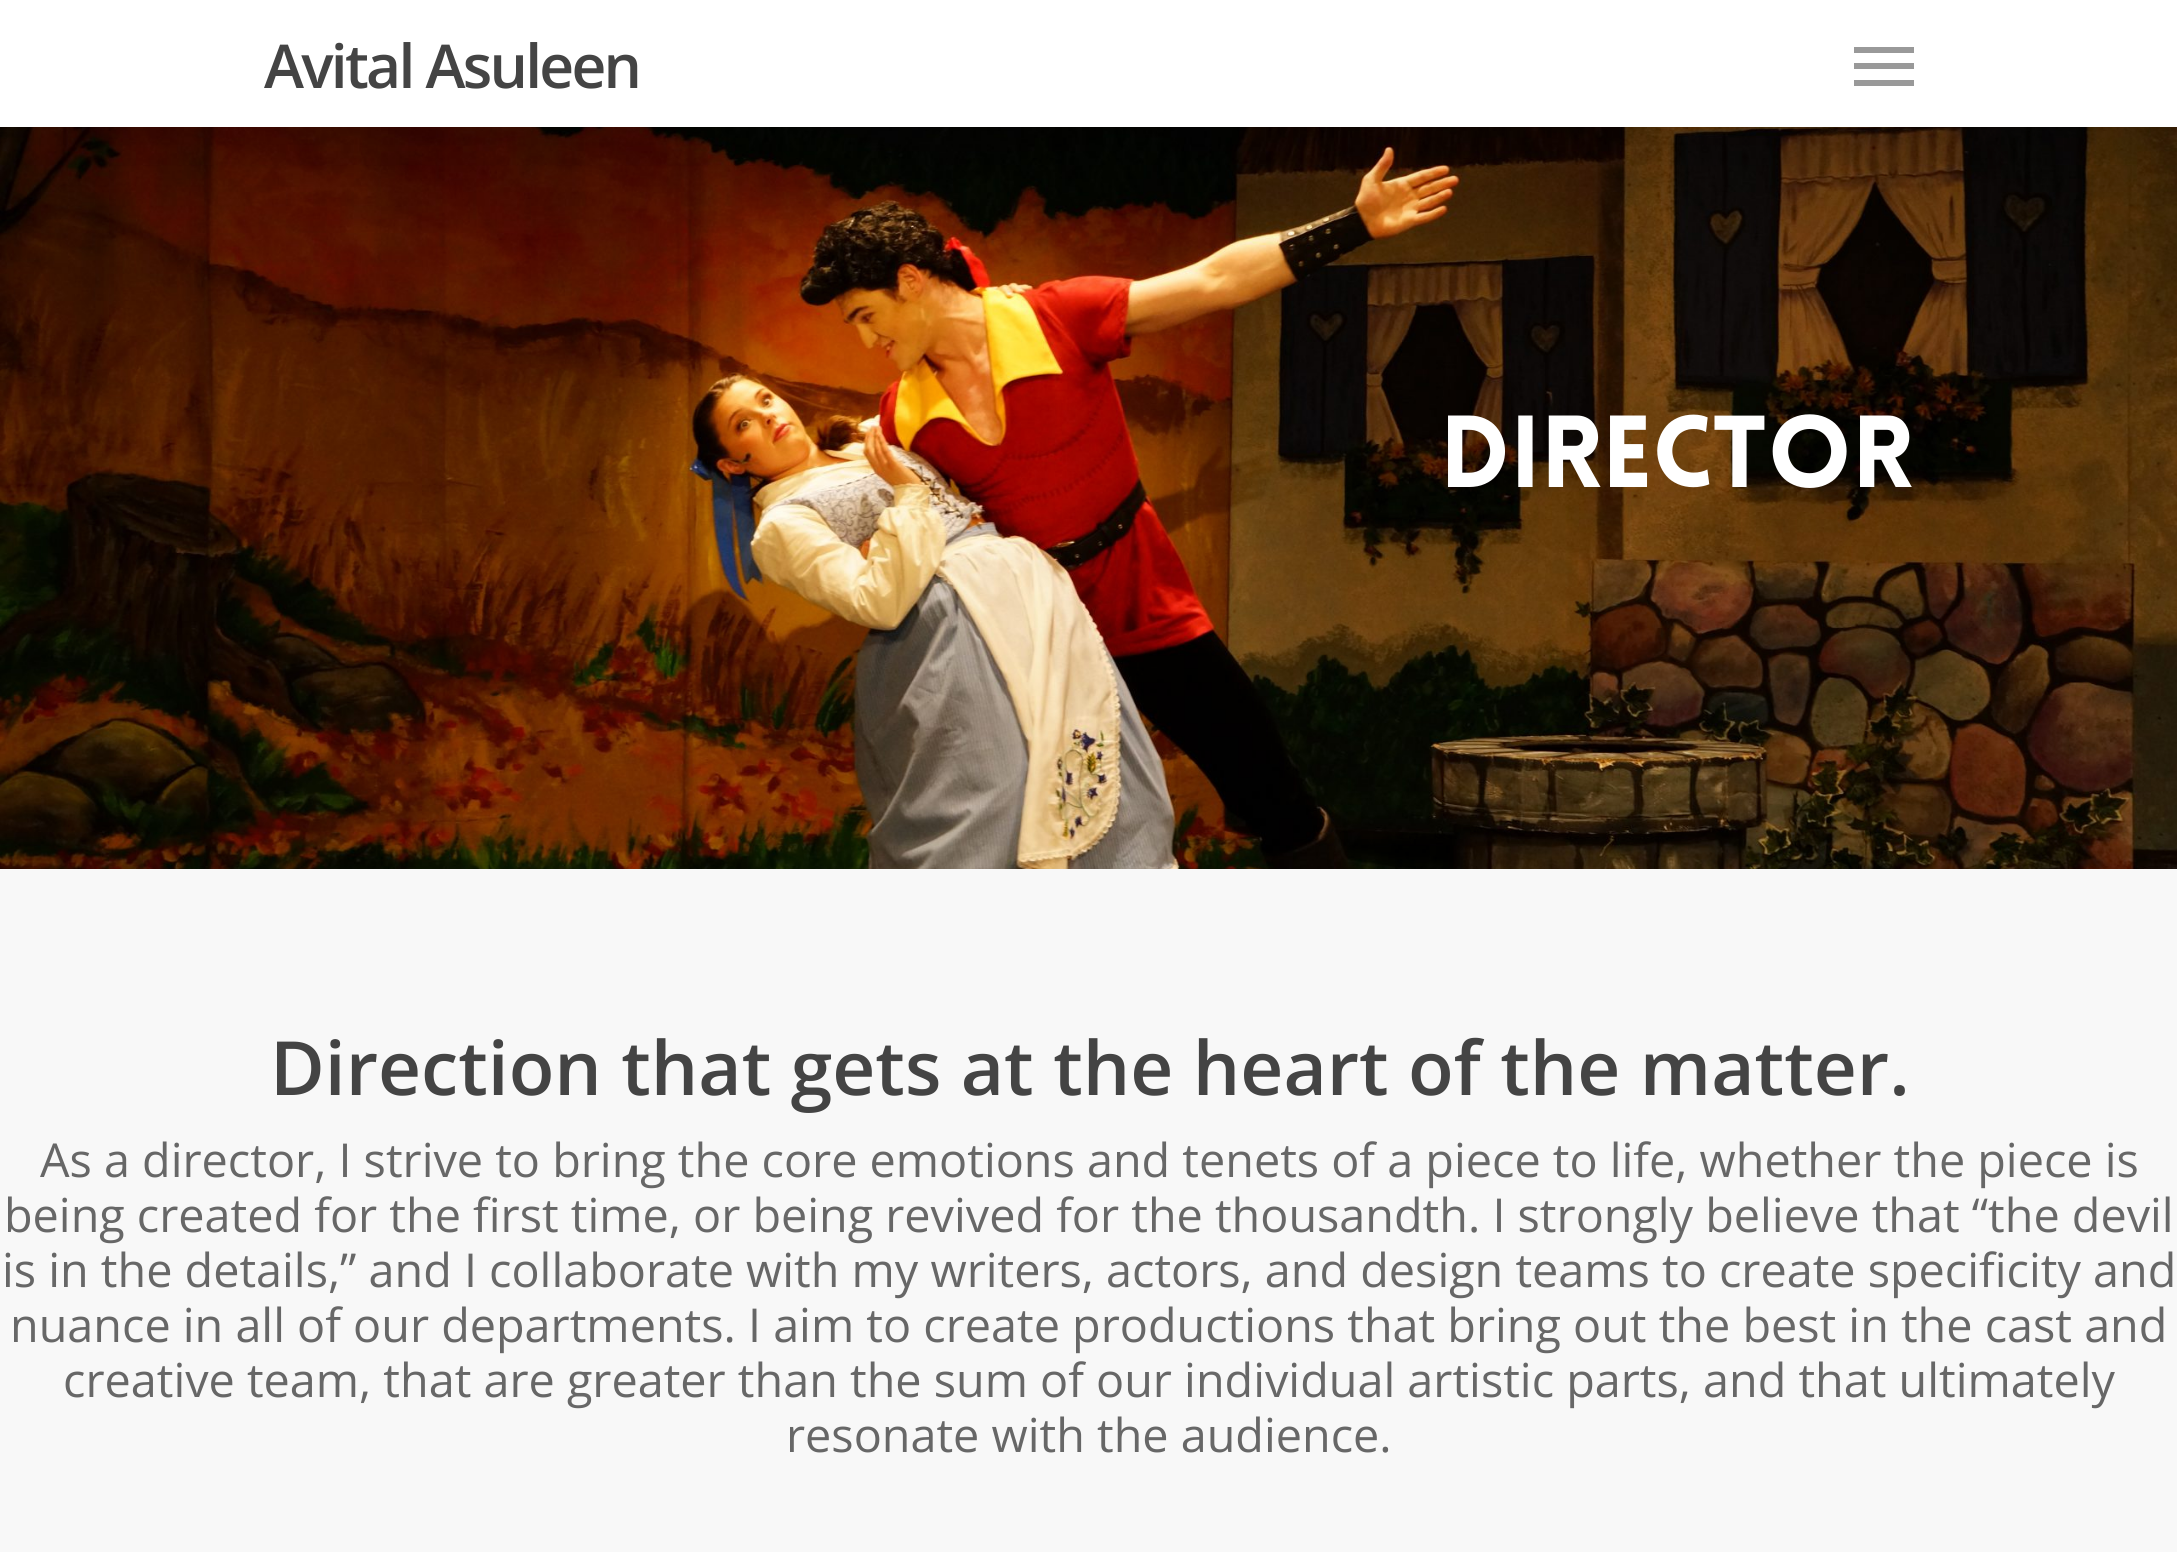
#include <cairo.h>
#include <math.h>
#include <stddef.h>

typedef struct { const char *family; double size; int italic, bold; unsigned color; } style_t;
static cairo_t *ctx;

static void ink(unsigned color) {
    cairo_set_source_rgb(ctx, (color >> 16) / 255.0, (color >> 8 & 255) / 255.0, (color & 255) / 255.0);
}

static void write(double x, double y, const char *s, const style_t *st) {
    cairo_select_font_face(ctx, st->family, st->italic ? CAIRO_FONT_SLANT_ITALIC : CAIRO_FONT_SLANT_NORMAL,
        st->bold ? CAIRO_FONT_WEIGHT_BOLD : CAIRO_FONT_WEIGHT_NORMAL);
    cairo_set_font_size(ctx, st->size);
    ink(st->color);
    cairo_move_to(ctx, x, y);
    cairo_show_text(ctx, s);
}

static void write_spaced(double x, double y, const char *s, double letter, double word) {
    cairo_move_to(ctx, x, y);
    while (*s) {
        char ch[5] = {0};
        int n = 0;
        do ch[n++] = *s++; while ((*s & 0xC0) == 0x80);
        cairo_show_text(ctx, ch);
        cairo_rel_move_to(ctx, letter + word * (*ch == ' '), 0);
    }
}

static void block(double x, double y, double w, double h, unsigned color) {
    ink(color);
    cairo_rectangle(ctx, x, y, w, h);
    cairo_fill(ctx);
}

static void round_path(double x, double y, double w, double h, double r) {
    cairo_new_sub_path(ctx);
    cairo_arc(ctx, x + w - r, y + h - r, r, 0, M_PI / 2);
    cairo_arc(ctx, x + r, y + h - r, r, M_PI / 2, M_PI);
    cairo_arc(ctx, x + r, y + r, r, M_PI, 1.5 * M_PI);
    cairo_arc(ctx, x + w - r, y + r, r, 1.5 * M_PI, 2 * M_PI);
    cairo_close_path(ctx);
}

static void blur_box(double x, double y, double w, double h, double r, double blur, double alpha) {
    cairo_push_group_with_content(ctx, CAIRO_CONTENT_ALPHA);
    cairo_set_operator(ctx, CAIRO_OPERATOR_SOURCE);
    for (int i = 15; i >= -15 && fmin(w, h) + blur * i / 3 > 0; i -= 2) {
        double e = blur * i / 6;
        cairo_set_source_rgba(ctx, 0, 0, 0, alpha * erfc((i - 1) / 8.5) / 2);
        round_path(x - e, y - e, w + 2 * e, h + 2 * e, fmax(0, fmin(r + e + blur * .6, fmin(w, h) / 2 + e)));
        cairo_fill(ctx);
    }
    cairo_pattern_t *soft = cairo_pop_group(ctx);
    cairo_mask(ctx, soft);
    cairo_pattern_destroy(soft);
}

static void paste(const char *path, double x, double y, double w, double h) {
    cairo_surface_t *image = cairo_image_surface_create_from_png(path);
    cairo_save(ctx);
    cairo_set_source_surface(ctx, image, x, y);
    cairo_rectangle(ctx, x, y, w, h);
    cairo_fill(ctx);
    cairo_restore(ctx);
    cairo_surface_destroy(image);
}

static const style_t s1 = {"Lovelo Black", 100, 0, 0, 0xffffff};
static const style_t s2 = {"Open Sans SemiBold", 74.8, 0, 0, 0x444444};
static const style_t s3 = {"Open Sans", 46.75, 0, 0, 0x676767};

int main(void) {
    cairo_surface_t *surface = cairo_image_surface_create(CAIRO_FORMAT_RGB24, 2177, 1552);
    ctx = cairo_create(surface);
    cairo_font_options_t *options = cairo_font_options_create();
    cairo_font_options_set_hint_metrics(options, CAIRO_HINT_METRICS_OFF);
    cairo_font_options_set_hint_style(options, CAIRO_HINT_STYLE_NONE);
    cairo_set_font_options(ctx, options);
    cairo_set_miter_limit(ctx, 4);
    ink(0xffffff);
    cairo_paint(ctx);
    paste("pic1.png", 0, 127, 2177, 742);
    ink(0x000000);
    blur_box(0, 8, 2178, 127, 0, 62, 0.15);
    block(0, 0, 2177, 127, 0xffffff);
    cairo_select_font_face(ctx, "Open Sans SemiBold", CAIRO_FONT_SLANT_NORMAL, CAIRO_FONT_WEIGHT_NORMAL);
    cairo_set_font_size(ctx, 60.5);
    ink(0x444444);
    write_spaced(264, 88, "Avital Asuleen", -2.75, 0);
    block(1854, 47, 60, 6, 0x999999);
    block(1854, 80, 60, 6, 0x999999);
    block(1854, 63, 60, 6, 0x999999);
    write(1440, 487, "Director", &s1);
    block(0, 869, 2177, 683, 0xf8f8f8);
    write(270, 1095, "Direction that gets at the heart of the matter.", &s2);
    write(40, 1177, "As a director, I strive to bring the core emotions and tenets of a piece to life, whether the piece is", &s3);
    write(4, 1232, "being created for the first time, or being revived for the thousandth. I strongly believe that “the devil", &s3);
    write(2, 1287, "is in the details,” and I collaborate with my writers, actors, and design teams to create specificity and", &s3);
    write(10, 1342, "nuance in all of our departments. I aim to create productions that bring out the best in the cast and", &s3);
    write(63, 1397, "creative team, that are greater than the sum of our individual artistic parts, and that ultimately", &s3);
    write(786, 1452, "resonate with the audience.", &s3);
    cairo_surface_write_to_png(surface, "screenshot.png");
    cairo_font_options_destroy(options);
    cairo_destroy(ctx);
    cairo_surface_destroy(surface);
    return 0;
}
